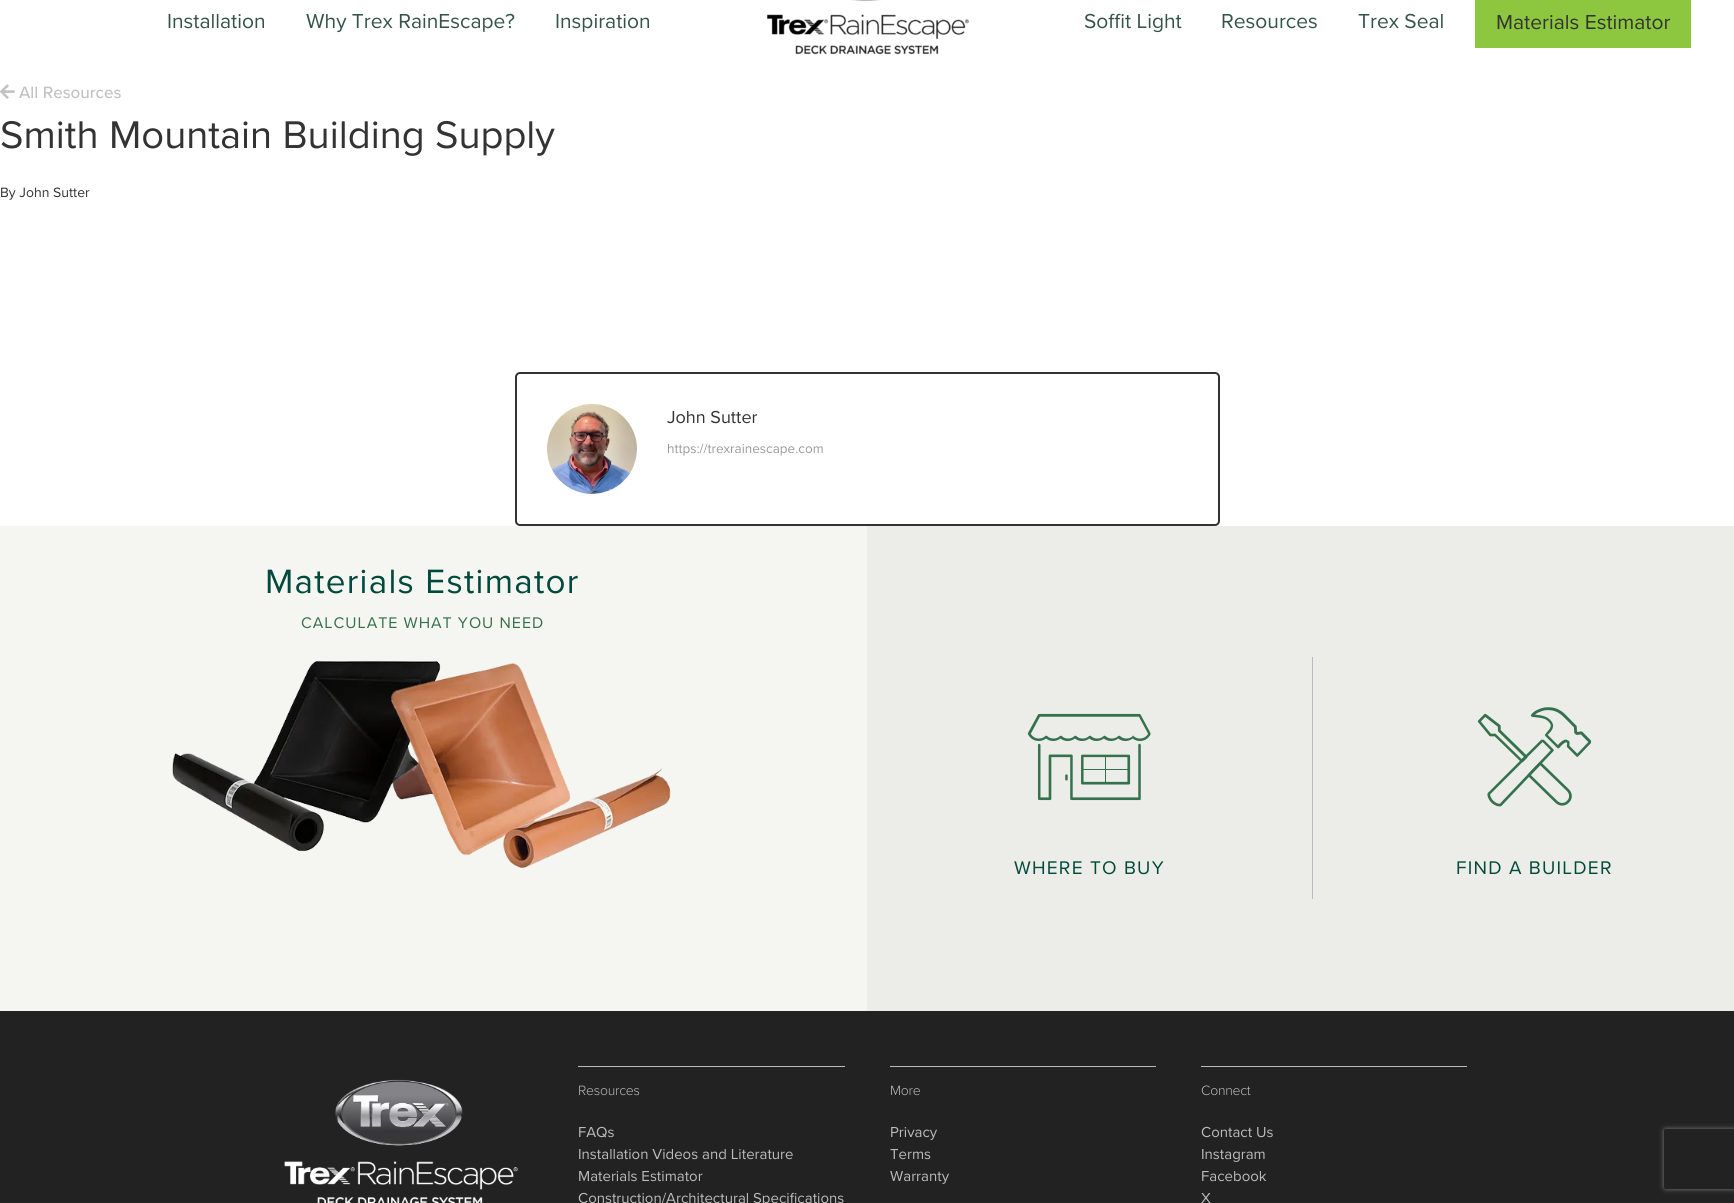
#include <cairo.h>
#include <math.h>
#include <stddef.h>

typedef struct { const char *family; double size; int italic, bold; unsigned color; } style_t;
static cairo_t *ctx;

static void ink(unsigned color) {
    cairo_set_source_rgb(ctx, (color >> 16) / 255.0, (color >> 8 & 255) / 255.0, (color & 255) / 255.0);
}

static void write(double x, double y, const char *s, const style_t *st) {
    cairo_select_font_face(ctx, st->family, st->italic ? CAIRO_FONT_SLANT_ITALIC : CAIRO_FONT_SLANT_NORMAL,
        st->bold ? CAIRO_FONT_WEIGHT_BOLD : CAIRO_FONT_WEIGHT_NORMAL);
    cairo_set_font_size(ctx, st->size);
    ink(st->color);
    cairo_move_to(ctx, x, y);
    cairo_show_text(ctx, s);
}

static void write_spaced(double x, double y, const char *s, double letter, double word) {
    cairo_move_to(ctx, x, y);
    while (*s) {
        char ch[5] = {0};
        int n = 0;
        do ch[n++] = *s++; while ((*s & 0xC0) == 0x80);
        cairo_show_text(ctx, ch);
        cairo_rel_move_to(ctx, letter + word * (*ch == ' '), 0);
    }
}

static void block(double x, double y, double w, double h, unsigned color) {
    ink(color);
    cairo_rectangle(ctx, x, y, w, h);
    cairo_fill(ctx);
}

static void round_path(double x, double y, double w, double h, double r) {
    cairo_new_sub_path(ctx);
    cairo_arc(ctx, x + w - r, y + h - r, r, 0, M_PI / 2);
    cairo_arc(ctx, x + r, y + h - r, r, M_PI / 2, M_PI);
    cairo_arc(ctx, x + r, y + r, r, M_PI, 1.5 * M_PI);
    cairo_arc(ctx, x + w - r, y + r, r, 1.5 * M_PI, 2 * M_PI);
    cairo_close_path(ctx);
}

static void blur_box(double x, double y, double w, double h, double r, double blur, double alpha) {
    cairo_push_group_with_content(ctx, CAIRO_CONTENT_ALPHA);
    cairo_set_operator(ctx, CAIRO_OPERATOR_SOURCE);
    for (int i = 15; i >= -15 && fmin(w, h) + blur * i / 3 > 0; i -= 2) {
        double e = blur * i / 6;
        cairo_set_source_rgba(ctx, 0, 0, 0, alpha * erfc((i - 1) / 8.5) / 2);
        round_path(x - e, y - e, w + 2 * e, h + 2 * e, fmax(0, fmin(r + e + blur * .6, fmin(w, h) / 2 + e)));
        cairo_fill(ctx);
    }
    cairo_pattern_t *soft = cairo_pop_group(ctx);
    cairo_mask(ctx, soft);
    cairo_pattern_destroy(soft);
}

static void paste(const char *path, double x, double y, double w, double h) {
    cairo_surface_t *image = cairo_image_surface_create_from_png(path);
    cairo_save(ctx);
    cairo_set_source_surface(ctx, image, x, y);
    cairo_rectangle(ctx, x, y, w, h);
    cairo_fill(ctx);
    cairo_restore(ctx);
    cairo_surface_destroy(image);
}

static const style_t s1 = {"Proxima Nova", 21, 0, 0, 0x34544a};
static const style_t s2 = {"Proxima Nova", 21, 0, 0, 0x333333};
static const style_t s3 = {"Proxima Nova Medium", 17, 0, 0, 0xc2c2c2};
static const style_t s4 = {"Proxima Nova", 40, 0, 0, 0x333333};
static const style_t s5 = {"Proxima Nova", 14, 0, 0, 0x333333};
static const style_t s6 = {"Proxima Nova", 18, 0, 0, 0x333333};
static const style_t s7 = {"Proxima Nova", 13.5, 0, 0, 0x999999};
static const style_t s8 = {"Proxima Nova", 15, 0, 0, 0xbbbbbb};

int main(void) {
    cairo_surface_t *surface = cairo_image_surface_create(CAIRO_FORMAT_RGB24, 1734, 1203);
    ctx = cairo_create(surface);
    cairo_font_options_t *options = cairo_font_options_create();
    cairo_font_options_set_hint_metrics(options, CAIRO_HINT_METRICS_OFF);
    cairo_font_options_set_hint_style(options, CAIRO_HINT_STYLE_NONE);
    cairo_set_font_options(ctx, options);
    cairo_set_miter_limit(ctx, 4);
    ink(0xffffff);
    cairo_paint(ctx);
    write(167, 28, "Installation", &s1);
    write(306, 28, "Why Trex RainEscape?", &s1);
    write(555, 28, "Inspiration", &s1);
    paste("pic1.png", 766, 0, 203, 55);
    write(1084, 28, "Soffit Light", &s1);
    write(1221, 28, "Resources", &s1);
    write(1358, 28, "Trex Seal", &s1);
    block(1475, 0, 216, 48, 0x8dc63f);
    write(1496, 29, "Materials Estimator", &s2);
    paste("pic2.png", 0, 84, 15, 15);
    write(19, 98, "All Resources", &s3);
    write(0, 148, "Smith Mountain Building Supply", &s4);
    write(0, 197, "By John Sutter", &s5);
    round_path(516, 373, 703, 152, 4);
    cairo_stroke(ctx);
    paste("pic3.png", 547, 404, 90, 90);
    write(667, 423, "John Sutter", &s6);
    write(667, 453, "https://trexrainescape.com", &s7);
    block(0, 526, 867, 485, 0xf5f6f1);
    block(867, 526, 867, 485, 0xecede8);
    cairo_set_font_size(ctx, 35);
    ink(0x00493d);
    write_spaced(265, 593, "Materials Estimator", 1.25, 0);
    cairo_set_font_size(ctx, 16);
    ink(0x34704b);
    write_spaced(301, 628, "CALCULATE WHAT YOU NEED", 1, 0);
    paste("pic4.png", 172, 660, 499, 209);
    paste("pic5.png", 1027, 713, 124, 88);
    cairo_set_font_size(ctx, 19);
    ink(0x00493d);
    write_spaced(1014, 874, "WHERE TO BUY", 1.25, 0);
    block(1312, 657, 1, 242, 0xbbbbbb);
    paste("pic6.png", 1477, 707, 115, 100);
    ink(0x00493d);
    write_spaced(1456, 874, "FIND A BUILDER", 1.25, 0);
    block(0, 1011, 1734, 192, 0x222222);
    paste("pic7.png", 284, 1079, 234, 124);
    block(578, 1066, 267, 1, 0xbbbbbb);
    cairo_select_font_face(ctx, "Proxima Nova Light", CAIRO_FONT_SLANT_NORMAL, CAIRO_FONT_WEIGHT_NORMAL);
    cairo_set_font_size(ctx, 14);
    write_spaced(578, 1095, "Resources", -0.25, 0);
    write(578, 1137, "FAQs", &s8);
    write(578, 1159, "Installation Videos and Literature", &s8);
    write(578, 1181, "Materials Estimator", &s8);
    write(578, 1203, "Construction/Architectural Specifications", &s8);
    block(890, 1066, 266, 1, 0xbbbbbb);
    cairo_select_font_face(ctx, "Proxima Nova Light", CAIRO_FONT_SLANT_NORMAL, CAIRO_FONT_WEIGHT_NORMAL);
    cairo_set_font_size(ctx, 14);
    write_spaced(890, 1095, "More", -0.25, 0);
    write(890, 1137, "Privacy", &s8);
    write(890, 1159, "Terms", &s8);
    write(890, 1181, "Warranty", &s8);
    block(1201, 1066, 266, 1, 0xbbbbbb);
    cairo_select_font_face(ctx, "Proxima Nova Light", CAIRO_FONT_SLANT_NORMAL, CAIRO_FONT_WEIGHT_NORMAL);
    cairo_set_font_size(ctx, 14);
    write_spaced(1201, 1095, "Connect", -0.25, 0);
    write(1201, 1137, "Contact Us", &s8);
    write(1201, 1159, "Instagram", &s8);
    write(1201, 1181, "Facebook", &s8);
    write(1201, 1203, "X", &s8);
    cairo_save(ctx);
    cairo_set_fill_rule(ctx, CAIRO_FILL_RULE_EVEN_ODD);
    cairo_new_path(ctx);
    cairo_move_to(ctx, 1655, 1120);
    cairo_line_to(ctx, 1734, 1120);
    cairo_line_to(ctx, 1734, 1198);
    cairo_line_to(ctx, 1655, 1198);
    cairo_close_path(ctx);
    cairo_move_to(ctx, 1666, 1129);
    cairo_line_to(ctx, 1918, 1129);
    cairo_curve_to(ctx, 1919, 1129, 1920, 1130, 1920, 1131);
    cairo_line_to(ctx, 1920, 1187);
    cairo_curve_to(ctx, 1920, 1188, 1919, 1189, 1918, 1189);
    cairo_line_to(ctx, 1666, 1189);
    cairo_curve_to(ctx, 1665, 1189, 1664, 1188, 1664, 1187);
    cairo_line_to(ctx, 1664, 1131);
    cairo_curve_to(ctx, 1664, 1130, 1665, 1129, 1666, 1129);
    cairo_close_path(ctx);
    cairo_clip(ctx);
    ink(0x808080);
    blur_box(1664, 1129, 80, 60, 2, 2.5, 1);
    cairo_restore(ctx);
    cairo_surface_write_to_png(surface, "screenshot.png");
    cairo_font_options_destroy(options);
    cairo_destroy(ctx);
    cairo_surface_destroy(surface);
    return 0;
}
